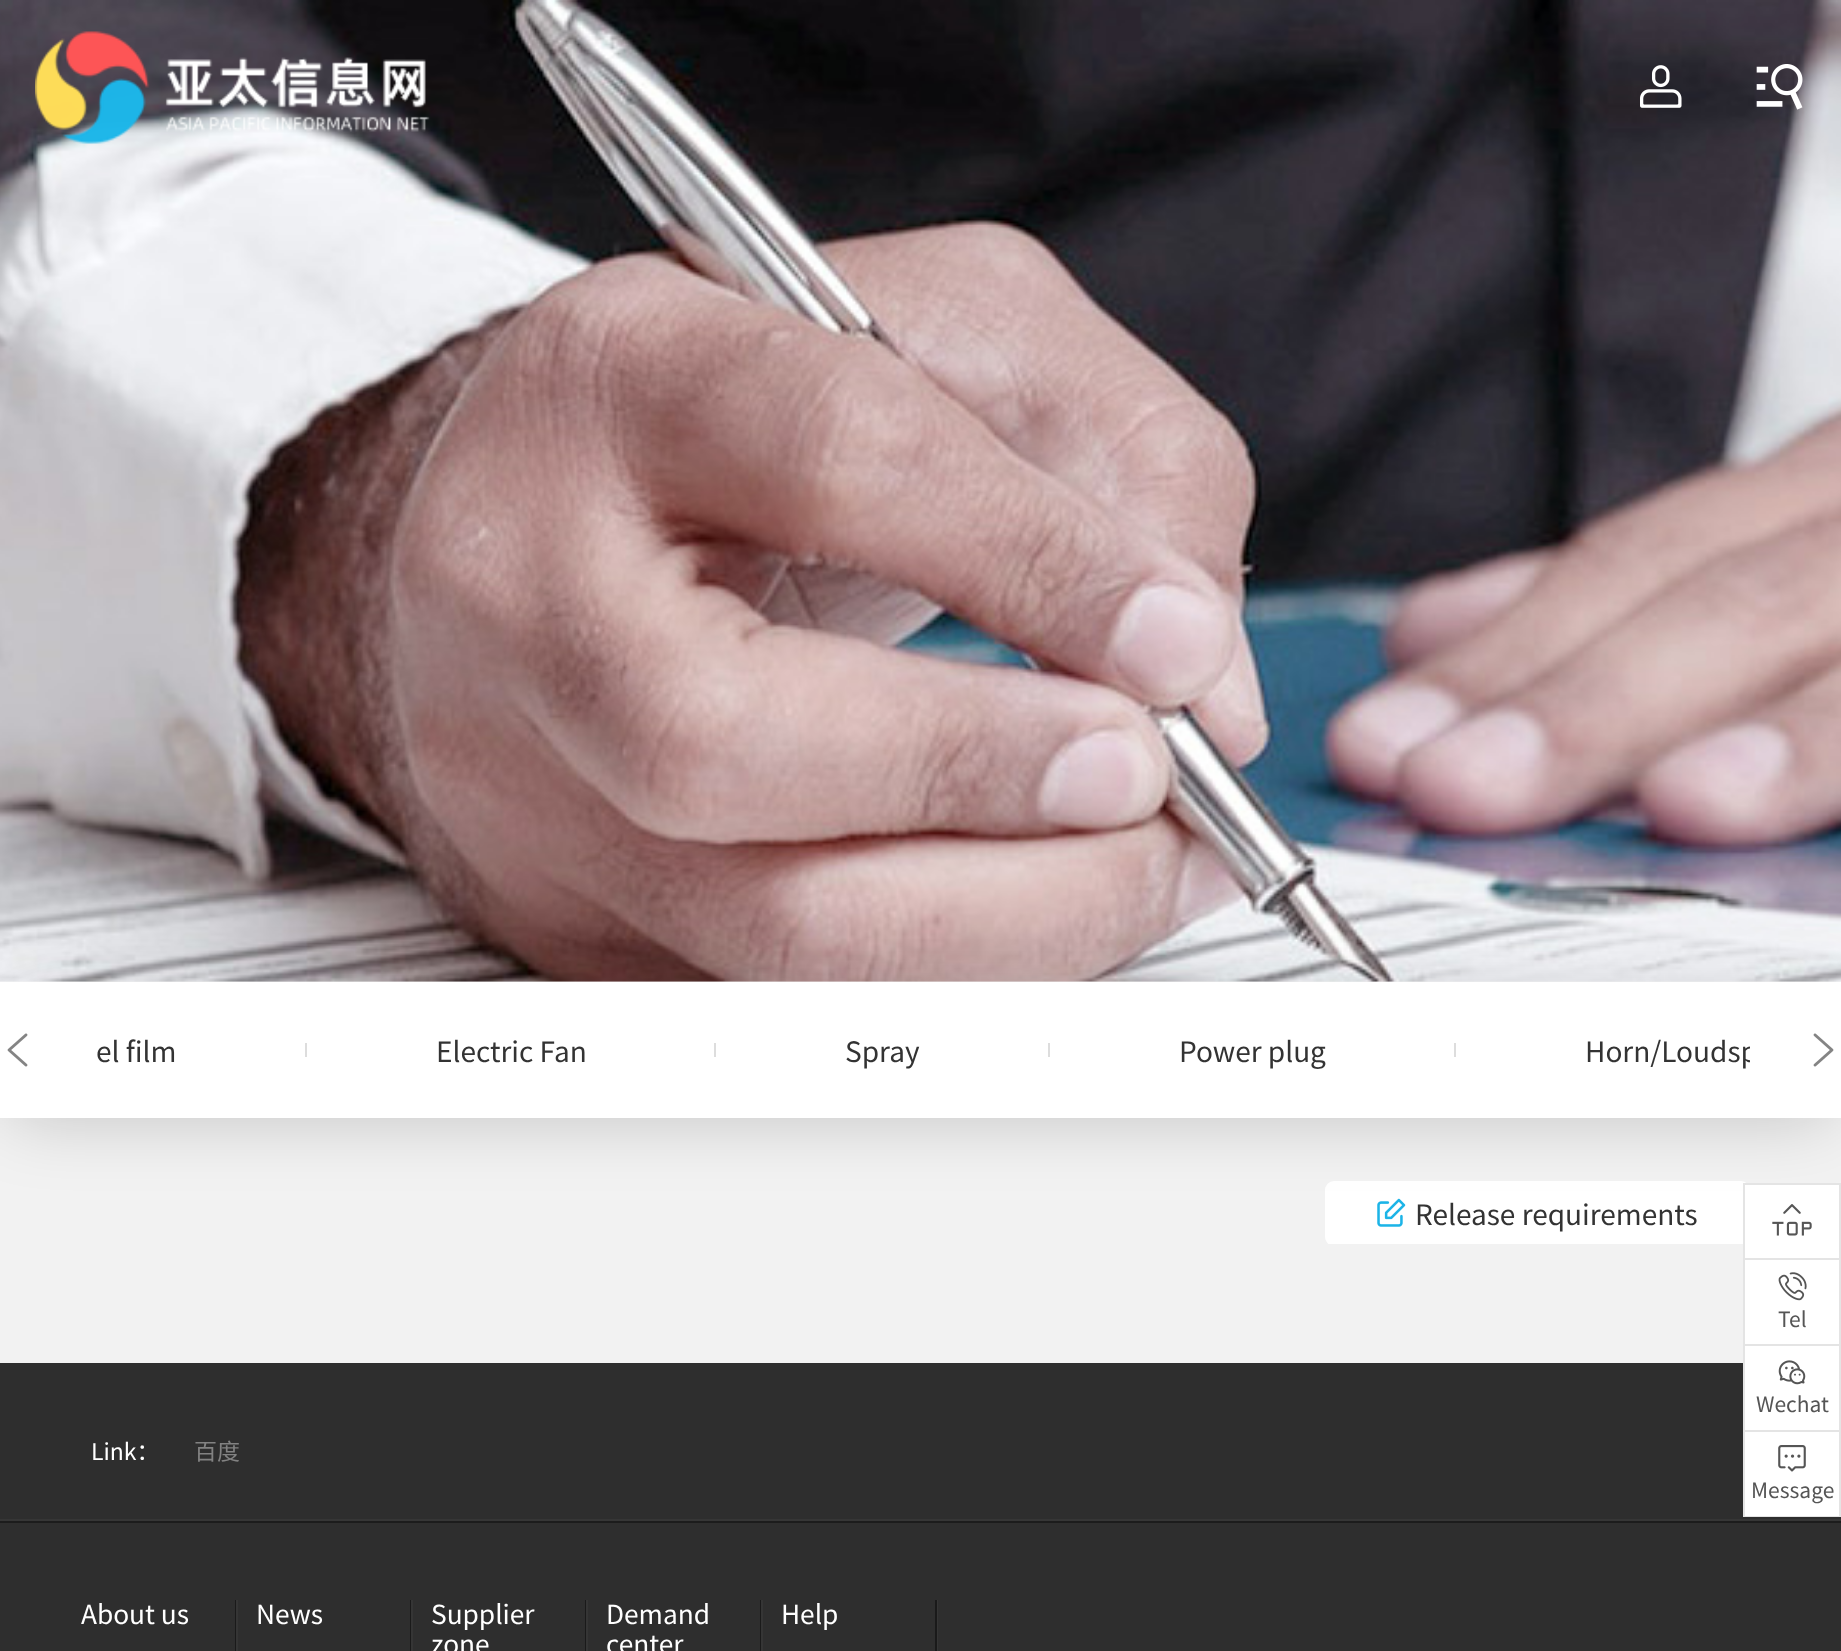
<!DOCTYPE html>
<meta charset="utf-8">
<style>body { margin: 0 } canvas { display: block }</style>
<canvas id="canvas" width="1841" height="1651"></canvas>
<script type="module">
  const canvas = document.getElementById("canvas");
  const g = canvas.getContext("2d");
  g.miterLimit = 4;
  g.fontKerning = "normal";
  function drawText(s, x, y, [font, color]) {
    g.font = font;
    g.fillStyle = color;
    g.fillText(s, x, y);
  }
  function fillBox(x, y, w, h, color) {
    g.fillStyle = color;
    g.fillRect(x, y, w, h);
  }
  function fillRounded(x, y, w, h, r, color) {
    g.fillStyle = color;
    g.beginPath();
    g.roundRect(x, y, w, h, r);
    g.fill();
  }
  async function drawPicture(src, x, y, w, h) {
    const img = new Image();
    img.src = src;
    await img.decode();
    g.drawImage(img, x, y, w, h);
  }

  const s1 = ["28px Noto Sans CJK SC", "#333333"];
  const s2 = ["21px Noto Sans CJK SC", "#555555"];
  const s3 = ["23px Noto Sans CJK SC", "#FFFFFF"];
  const s4 = ["23px Noto Sans CJK SC", "#828282"];
  const s5 = ["26.25px Noto Sans CJK SC", "#FFFFFF"];

  fillBox(0, 0, 1841, 1651, "#FFFFFF");
  await drawPicture("pic1.png", 0, 0, 1841, 982);
  await drawPicture("pic2.png", 35, 31, 395, 113);
  await drawPicture("pic3.png", 1640, 65, 42, 43);
  await drawPicture("pic4.png", 1756, 64, 47, 46);
  fillBox(0, 1118, 1841, 245, "#F2F2F2");
  g.save();
  g.beginPath();
  g.rect(0, 1181, 1841, 63);
  g.clip();
  fillRounded(1325, 1181, 425, 65, 9, "#FFFFFF");
  g.restore();
  await drawPicture("pic7.png", 1377, 1198, 29, 29);
  g.save();
  g.beginPath();
  g.moveTo(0, 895);
  g.lineTo(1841, 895);
  g.lineTo(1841, 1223);
  g.lineTo(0, 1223);
  g.closePath();
  g.moveTo(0, 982);
  g.lineTo(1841, 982);
  g.lineTo(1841, 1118);
  g.lineTo(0, 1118);
  g.closePath();
  g.clip("evenodd");
  g.fillStyle = "rgba(0, 0, 0, 0.2)";
  g.filter = "blur(35px)";
  g.beginPath();
  g.rect(11, 1001, 1820, 116);
  g.fill();
  g.filter = "none";
  g.restore();
  await drawPicture("pic5.png", 7, 1033, 21, 34);
  drawText("el film", 96, 1062, s1);
  fillBox(305, 1043, 2, 14, "#DDDDDD");
  drawText("Electric Fan", 436, 1062, s1);
  fillBox(714, 1043, 2, 14, "#DDDDDD");
  drawText("Spray", 845, 1062, s1);
  fillBox(1048, 1043, 2, 14, "#DDDDDD");
  drawText("Power plug", 1179, 1062, s1);
  fillBox(1454, 1043, 2, 14, "#DDDDDD");
  g.save();
  g.beginPath();
  g.rect(91, 982, 1659, 136);
  g.clip();
  drawText("Horn/Loudsp", 1585, 1062, s1);
  g.restore();
  await drawPicture("pic6.png", 1813, 1033, 21, 34);
  drawText("Release requirements", 1415, 1225, s1);
  fillBox(0, 1363, 1841, 288, "#2E2E2E");
  g.strokeStyle = "#E4E4E4";
  g.lineWidth = 2;
  g.strokeRect(1744, 1184, 96, 332);
  fillBox(1745, 1185, 94, 73, "#FFFFFF");
  fillBox(1745, 1258, 94, 2, "#E4E4E4");
  await drawPicture("pic8.png", 1772, 1204, 40, 32);
  fillBox(1745, 1260, 94, 84, "#FFFFFF");
  fillBox(1745, 1344, 94, 2, "#E4E4E4");
  await drawPicture("pic9.png", 1778, 1272, 29, 29);
  drawText("Tel", 1778, 1327, s2);
  fillBox(1745, 1346, 94, 84, "#FFFFFF");
  fillBox(1745, 1430, 94, 2, "#E4E4E4");
  await drawPicture("pic10.png", 1778, 1360, 28, 25);
  drawText("Wechat", 1756, 1412, s2);
  fillBox(1745, 1432, 94, 84, "#FFFFFF");
  await drawPicture("pic11.png", 1778, 1445, 28, 27);
  drawText("Message", 1751, 1498, s2);
  fillBox(0, 1519, 1841, 2, "#363636");
  drawText("Link：", 91, 1460, s3);
  drawText("百度", 194, 1460, s4);
  fillBox(0, 1521, 1841, 2, "#1C1C1C");
  fillBox(937, 1600, 1, 51, "#353535");
  fillBox(235, 1600, 1, 51, "#1A1A1A");
  drawText("About us", 81, 1624, s5);
  fillBox(410, 1600, 1, 51, "#1A1A1A");
  fillBox(236, 1600, 2, 51, "#353535");
  drawText("News", 256, 1624, s5);
  fillBox(585, 1600, 1, 51, "#1A1A1A");
  fillBox(411, 1600, 2, 51, "#353535");
  drawText("Supplier", 431, 1624, s5);
  drawText("zone", 431, 1654, s5);
  fillBox(760, 1600, 1, 51, "#1A1A1A");
  fillBox(586, 1600, 2, 51, "#353535");
  drawText("Demand", 606, 1624, s5);
  drawText("center", 606, 1654, s5);
  fillBox(935, 1600, 2, 51, "#1A1A1A");
  fillBox(761, 1600, 2, 51, "#353535");
  drawText("Help", 781, 1624, s5);
</script>
